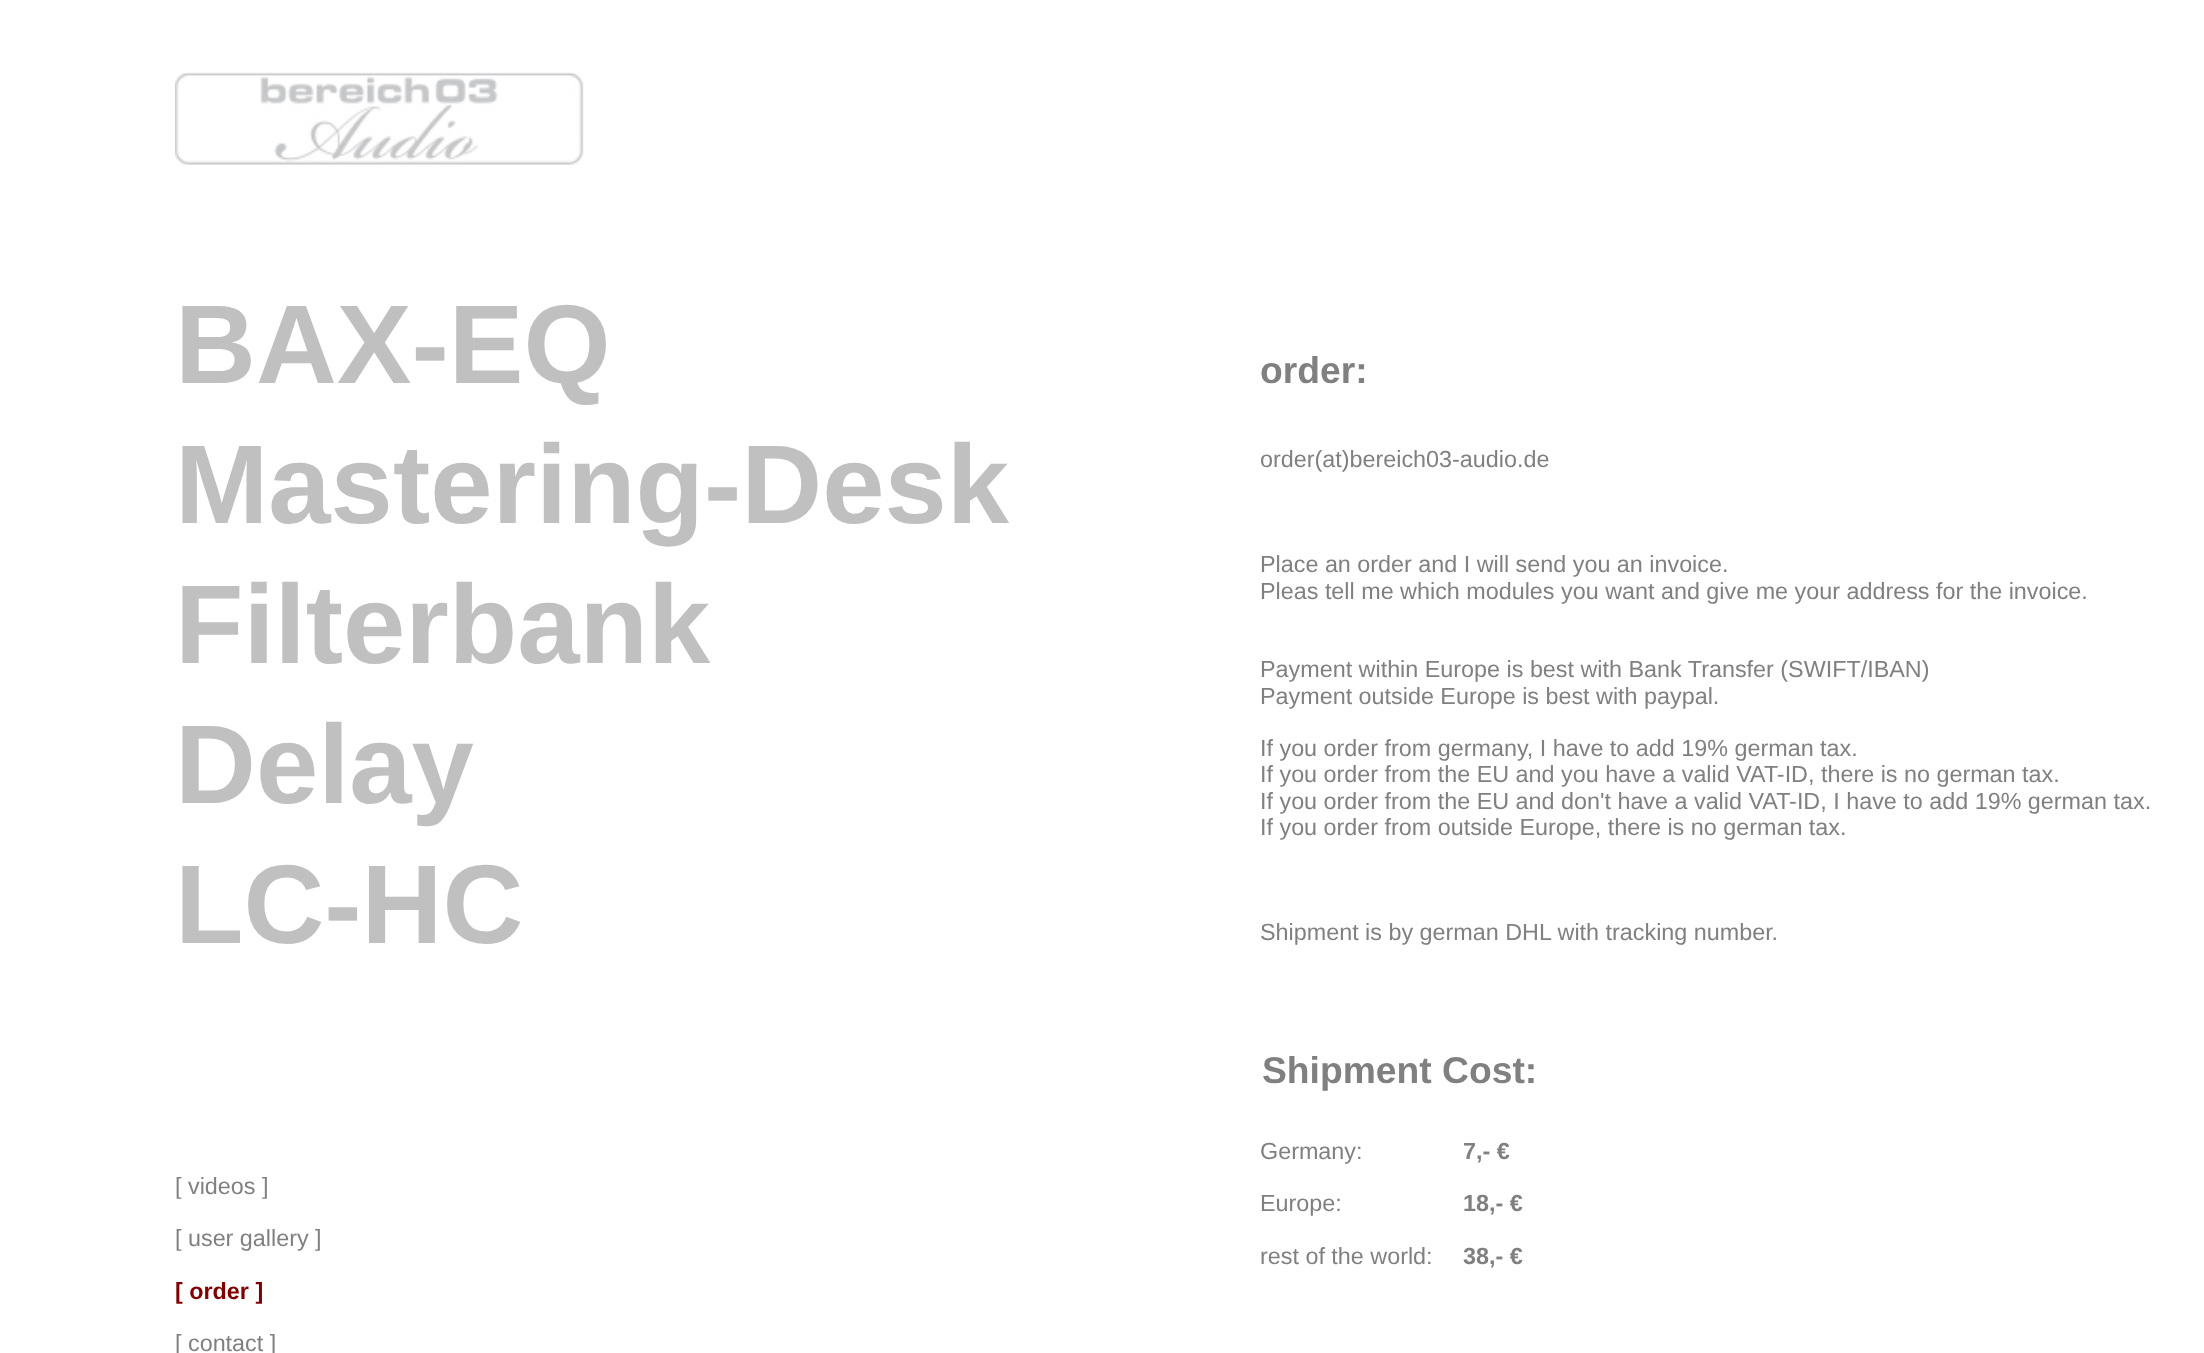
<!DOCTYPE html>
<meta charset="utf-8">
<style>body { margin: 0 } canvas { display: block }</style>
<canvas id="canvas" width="2204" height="1353"></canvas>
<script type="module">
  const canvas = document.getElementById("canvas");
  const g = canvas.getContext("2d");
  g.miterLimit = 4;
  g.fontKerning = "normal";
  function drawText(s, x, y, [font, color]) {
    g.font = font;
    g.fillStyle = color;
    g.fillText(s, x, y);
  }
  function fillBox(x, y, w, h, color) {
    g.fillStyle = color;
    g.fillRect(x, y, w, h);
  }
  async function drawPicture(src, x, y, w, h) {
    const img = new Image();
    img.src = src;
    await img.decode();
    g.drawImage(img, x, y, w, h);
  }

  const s1 = ["bold 112px Liberation Sans", "#C0C0C0"];
  const s2 = ["bold 37.25px Liberation Sans", "#808080"];
  const s3 = ["23.35px Liberation Sans", "#808080"];
  const s4 = ["bold 23.35px Liberation Sans", "#808080"];
  const s5 = ["bold 23.35px Liberation Sans", "#800000"];

  fillBox(0, 0, 2204, 1353, "#FFFFFF");
  await drawPicture("pic1.png", 175, 72, 409, 93);
  drawText("BAX-EQ", 175, 383, s1);
  drawText("order:", 1260, 383, s2);
  drawText("order(at)bereich03-audio.de", 1260, 467, s3);
  drawText("Place an order and I will send you an invoice.", 1260, 572, s3);
  drawText("Pleas tell me which modules you want and give me your address for the invoice.", 1260, 599, s3);
  drawText("Payment within Europe is best with Bank Transfer (SWIFT/IBAN)", 1260, 677, s3);
  drawText("Payment outside Europe is best with paypal.", 1260, 704, s3);
  drawText("If you order from germany, I have to add 19% german tax.", 1260, 756, s3);
  drawText("If you order from the EU and you have a valid VAT-ID, there is no german tax.", 1260, 782, s3);
  drawText("If you order from the EU and don't have a valid VAT-ID, I have to add 19% german tax.", 1260, 809, s3);
  drawText("If you order from outside Europe, there is no german tax.", 1260, 835, s3);
  drawText("Shipment is by german DHL with tracking number.", 1260, 940, s3);
  drawText("Mastering-Desk", 175, 523, s1);
  drawText("Filterbank", 175, 663, s1);
  drawText("Delay", 175, 803, s1);
  drawText("LC-HC", 175, 943, s1);
  drawText("Shipment Cost:", 1262, 1083, s2);
  drawText("[ videos ]", 175, 1194, s3);
  drawText("Germany:", 1260, 1159, s3);
  drawText("Europe:", 1260, 1211, s3);
  drawText("rest of the world:", 1260, 1264, s3);
  drawText("7,- €", 1463, 1159, s4);
  drawText("18,- €", 1463, 1211, s4);
  drawText("38,- €", 1463, 1264, s4);
  drawText("[ user gallery ]", 175, 1246, s3);
  drawText("[ order ]", 175, 1299, s5);
  drawText("[ contact ]", 175, 1351, s3);
</script>
